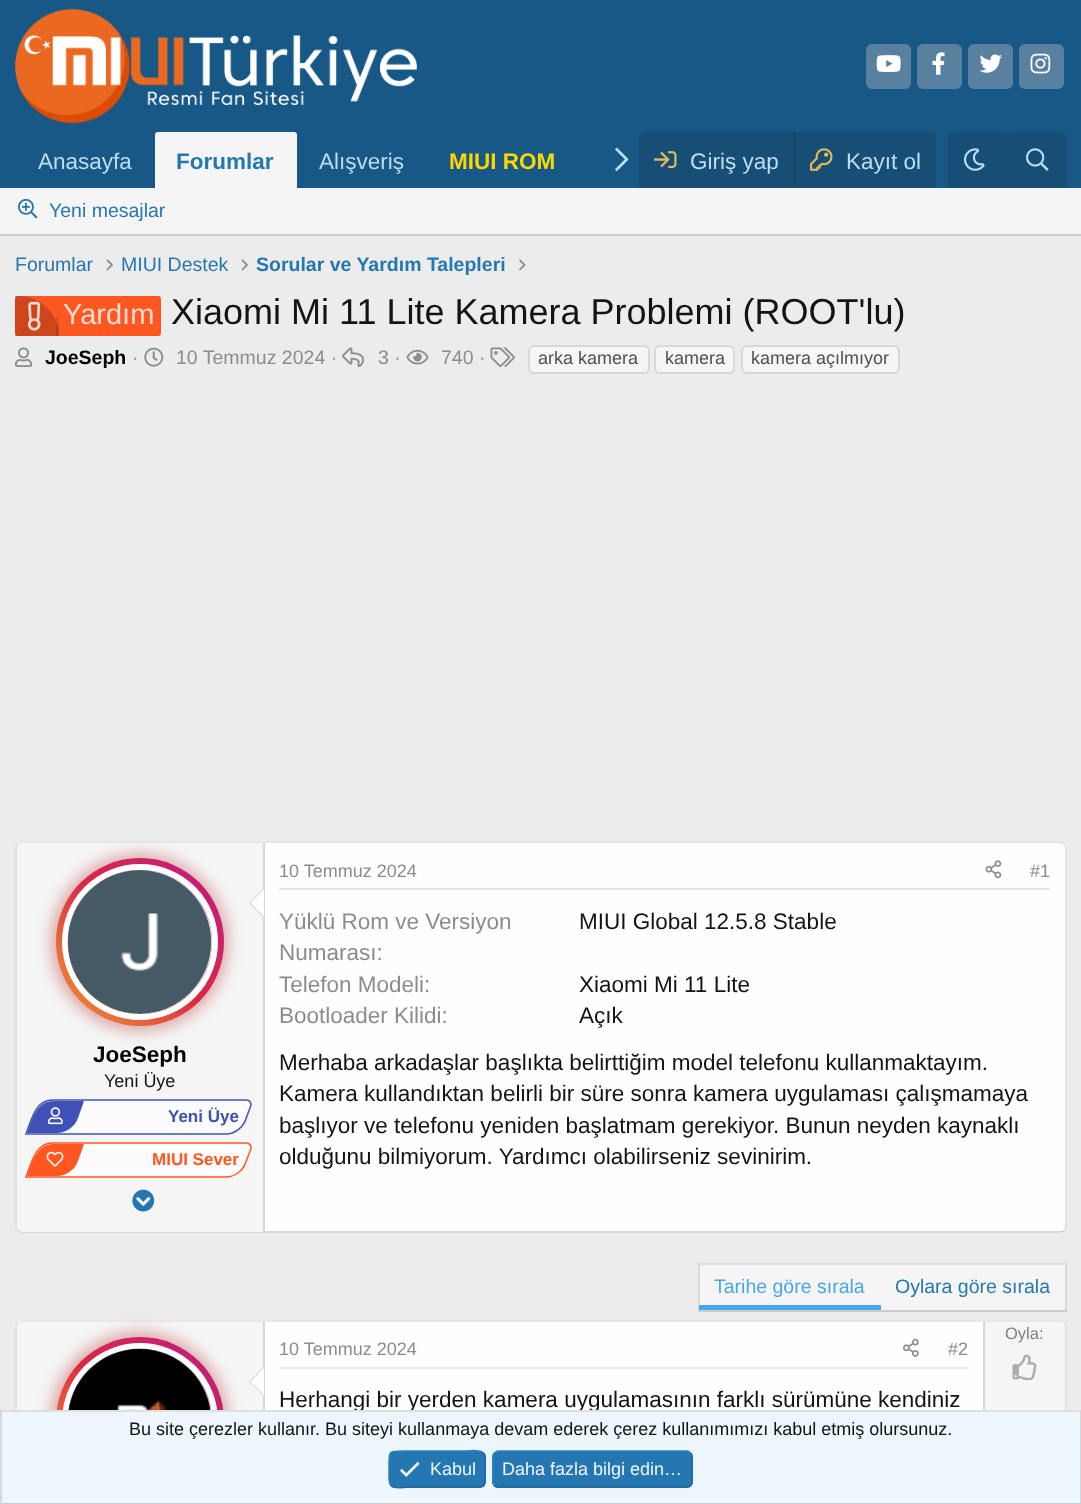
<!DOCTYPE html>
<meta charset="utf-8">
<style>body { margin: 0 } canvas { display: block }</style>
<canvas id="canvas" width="1081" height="1504"></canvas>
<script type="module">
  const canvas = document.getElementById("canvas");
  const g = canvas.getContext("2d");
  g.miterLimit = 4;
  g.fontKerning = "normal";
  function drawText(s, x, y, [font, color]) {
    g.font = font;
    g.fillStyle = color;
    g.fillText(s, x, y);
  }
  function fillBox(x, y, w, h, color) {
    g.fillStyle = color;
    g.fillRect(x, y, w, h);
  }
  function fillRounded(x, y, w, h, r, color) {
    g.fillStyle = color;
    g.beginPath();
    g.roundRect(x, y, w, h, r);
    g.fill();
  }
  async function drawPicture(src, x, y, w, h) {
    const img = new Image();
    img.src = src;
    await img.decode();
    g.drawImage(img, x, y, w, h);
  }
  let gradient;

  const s1 = ["22.5px Liberation Sans", "#BCDEF5"];
  const s2 = ["bold 22.5px Liberation Sans", "#2577B1"];
  const s3 = ["bold 22.5px Liberation Sans", "#FDD700"];
  const s4 = ["19.5px Liberation Sans", "#2577B1"];
  const s5 = ["bold 19.5px Liberation Sans", "#2577B1"];
  const s6 = ["29px Liberation Sans", "#FFDDD3"];
  const s7 = ["36px Liberation Sans", "#141414"];
  const s8 = ["bold 19.5px Liberation Sans", "#000000"];
  const s9 = ["19.5px Liberation Sans", "#8C8C8C"];
  const s10 = ["18px Liberation Sans", "#505050"];
  const s11 = ["bold 22.5px Liberation Sans", "#000000"];
  const s12 = ["18px Liberation Sans", "#141414"];
  const s13 = ["bold 17px Liberation Sans", "#3F51B5"];
  const s14 = ["bold 17px Liberation Sans", "#FF5722"];
  const s15 = ["18px Liberation Sans", "#8C8C8C"];
  const s16 = ["22.5px Liberation Sans", "#8C8C8C"];
  const s17 = ["22.5px Liberation Sans", "#141414"];
  const s18 = ["19.5px Liberation Sans", "#47A7EB"];
  const s19 = ["16.5px Liberation Sans", "#808080"];
  const s20 = ["18px Liberation Sans", "#EDF6FD"];

  fillBox(0, 0, 1081, 1504, "#ECECEC");
  fillBox(0, 0, 1081, 188, "#185886");
  await drawPicture("pic1.png", 15, 9, 402, 114);
  fillRounded(866, 44, 45, 45, 6, "#58819F");
  await drawPicture("pic2.png", 876, 55, 25, 17);
  fillRounded(917, 44, 45, 45, 6, "#58819F");
  await drawPicture("pic3.png", 932, 52, 13, 23);
  fillRounded(968, 44, 45, 45, 6, "#58819F");
  await drawPicture("pic4.png", 979, 54, 23, 19);
  fillRounded(1019, 44, 45, 45, 6, "#58819F");
  await drawPicture("pic5.png", 1030, 53, 21, 21);
  drawText("Anasayfa", 38, 169, s1);
  g.fillStyle = "#F5F5F5";
  g.beginPath();
  g.roundRect(155, 132, 142, 56, [3, 3, 0, 0]);
  g.fill();
  drawText("Forumlar", 176, 169, s2);
  drawText("Alışveriş", 319, 169, s1);
  drawText("MIUI ROM", 449, 169, s3);
  await drawPicture("pic6.png", 615, 147, 14, 24);
  g.fillStyle = "#174E75";
  g.beginPath();
  g.roundRect(639, 132, 297, 56, [6, 6, 0, 0]);
  g.fill();
  await drawPicture("pic7.png", 654, 151, 23, 17);
  drawText("Giriş yap", 690, 169, s1);
  fillBox(794, 132, 2, 56, "#174566");
  await drawPicture("pic8.png", 810, 148, 23, 23);
  drawText("Kayıt ol", 846, 169, s1);
  g.fillStyle = "#174E75";
  g.beginPath();
  g.roundRect(948, 132, 60, 56, [6, 6, 0, 0]);
  g.fill();
  await drawPicture("pic9.png", 964, 148, 21, 23);
  g.beginPath();
  g.roundRect(1008, 132, 59, 56, [6, 6, 0, 0]);
  g.fill();
  await drawPicture("pic10.png", 1026, 148, 23, 23);
  fillBox(0, 188, 1081, 46, "#F5F5F5");
  fillBox(0, 234, 1081, 2, "#CBCBCB");
  await drawPicture("pic11.png", 18, 198, 20, 21);
  drawText("Yeni mesajlar", 49, 217, s4);
  drawText("Forumlar", 15, 271, s4);
  await drawPicture("pic12.png", 106, 259, 7, 12);
  drawText("MIUI Destek", 121, 271, s4);
  await drawPicture("pic12.png", 241, 259, 7, 12);
  drawText("Sorular ve Yardım Talepleri", 256, 271, s5);
  await drawPicture("pic13.png", 519, 259, 7, 12);
  fillRounded(15, 296, 146, 40, 3, "#FF5722");
  g.fillStyle = "rgba(0, 0, 0, 0.2)";
  g.beginPath();
  g.roundRect(15, 296, 44, 40, [0, 40, 0, 0]);
  g.fill();
  fillBox(56, 317, 3, 19, "rgba(0, 0, 0, 0.1)");
  await drawPicture("pic14.png", 27, 301, 14, 30);
  drawText("Yardım", 63, 324, s6);
  drawText("Xiaomi Mi 11 Lite Kamera Problemi (ROOT'lu)", 171, 324, s7);
  await drawPicture("pic15.png", 15, 347, 18, 20);
  drawText("JoeSeph", 45, 364, s8);
  drawText("·", 132, 364, s9);
  await drawPicture("pic16.png", 144, 347, 20, 20);
  drawText("10 Temmuz 2024 ·", 176, 364, s9);
  await drawPicture("pic17.png", 342, 347, 22, 20);
  drawText("3 ·", 378, 364, s9);
  await drawPicture("pic18.png", 406, 349, 23, 16);
  drawText("740 ·", 441, 364, s9);
  await drawPicture("pic19.png", 490, 347, 25, 20);
  g.fillStyle = "#F5F5F5";
  g.beginPath();
  g.roundRect(529, 346, 120, 27, 5);
  g.fill();
  g.strokeStyle = "#D8D8D8";
  g.lineWidth = 2;
  g.stroke();
  drawText("arka kamera", 538, 364, s10);
  g.fillStyle = "#F5F5F5";
  g.beginPath();
  g.roundRect(655, 346, 79, 27, 5);
  g.fill();
  g.stroke();
  drawText("kamera", 665, 364, s10);
  g.fillStyle = "#F5F5F5";
  g.beginPath();
  g.roundRect(742, 346, 157, 27, 5);
  g.fill();
  g.stroke();
  drawText("kamera açılmıyor", 751, 364, s10);
  fillRounded(15, 842, 1052, 391, 6, "#FEFEFE");
  g.beginPath();
  g.moveTo(17.5, 844);
  g.bezierCurveTo(18.5, 843, 19.5, 842, 21, 842);
  g.lineTo(1060.5, 842);
  g.bezierCurveTo(1062, 842, 1063, 843, 1064, 844);
  g.strokeStyle = "#DFDFDF";
  g.lineWidth = 1.5;
  g.stroke();
  g.beginPath();
  g.moveTo(1064, 844);
  g.bezierCurveTo(1065, 845, 1066, 846, 1066, 847.5);
  g.lineTo(1066, 1227);
  g.bezierCurveTo(1066, 1228.5, 1065, 1229.5, 1064, 1230.5);
  g.strokeStyle = "#D8D8D8";
  g.stroke();
  g.beginPath();
  g.moveTo(1064, 1230.5);
  g.bezierCurveTo(1063, 1231.5, 1062, 1232, 1060.5, 1232);
  g.lineTo(21, 1232);
  g.bezierCurveTo(19.5, 1232, 18.5, 1231.5, 17.5, 1230.5);
  g.strokeStyle = "#CBCBCB";
  g.stroke();
  g.beginPath();
  g.moveTo(17.5, 1230.5);
  g.bezierCurveTo(16.5, 1229.5, 16, 1228.5, 16, 1227);
  g.lineTo(16, 847.5);
  g.bezierCurveTo(16, 846, 16.5, 845, 17.5, 844);
  g.strokeStyle = "#D8D8D8";
  g.stroke();
  g.fillStyle = "#F5F5F5";
  g.beginPath();
  g.roundRect(17, 843, 247, 389, [5, 0, 0, 5]);
  g.fill();
  fillBox(263, 843, 2, 389, "#D8D8D8");
  g.fillStyle = "rgba(178, 34, 34, 0.38)";
  g.filter = "blur(7.5px)";
  g.beginPath();
  g.roundRect(51, 854, 177, 177, 88.5);
  g.fill();
  g.filter = "none";
  gradient = g.createLinearGradient(56, 1026, 224, 858);
  gradient.addColorStop(0, "#F09433");
  gradient.addColorStop(0.25, "#E6683C");
  gradient.addColorStop(0.5, "#DC2743");
  gradient.addColorStop(0.75, "#CC2366");
  gradient.addColorStop(1, "#BC1888");
  g.fillStyle = gradient;
  g.beginPath();
  g.arc(140, 942, 84, 0, Math.PI * 2);
  g.fill();
  g.beginPath();
  g.arc(140, 942, 75, 0, Math.PI * 2);
  g.strokeStyle = "#FFFFFF";
  g.lineWidth = 6;
  g.stroke();
  g.fillStyle = "#FEFEFE";
  g.beginPath();
  g.arc(140, 942, 72, 0, Math.PI * 2);
  g.fill();
  await drawPicture("pic20.png", 67, 870, 145, 144);
  g.fillStyle = "#D8D8D8";
  g.beginPath();
  g.moveTo(264, 888);
  g.lineTo(264, 918);
  g.lineTo(249, 903);
  g.closePath();
  g.fill();
  g.fillStyle = "#FEFEFE";
  g.beginPath();
  g.moveTo(264, 889.5);
  g.lineTo(264, 916.5);
  g.lineTo(250.5, 903);
  g.closePath();
  g.fill();
  drawText("JoeSeph", 93, 1062, s11);
  drawText("Yeni Üye", 104, 1087, s12);
  g.fillStyle = "#FCFCFC";
  g.beginPath();
  g.moveTo(53, 1099);
  g.lineTo(246, 1099);
  g.bezierCurveTo(251, 1099, 253, 1103, 251, 1107);
  g.lineTo(246, 1120);
  g.bezierCurveTo(243, 1128, 234, 1135, 226, 1135);
  g.lineTo(25, 1135);
  g.bezierCurveTo(30, 1121, 34, 1099, 53, 1099);
  g.closePath();
  g.fill();
  g.beginPath();
  g.moveTo(52.5, 1100);
  g.lineTo(246, 1100);
  g.bezierCurveTo(250, 1100, 252, 1103, 250.5, 1106.5);
  g.lineTo(245.5, 1120);
  g.bezierCurveTo(243, 1127.5, 234, 1134, 226.5, 1134);
  g.lineTo(26, 1134);
  g.bezierCurveTo(31, 1121, 35, 1100, 52.5, 1100);
  g.closePath();
  g.strokeStyle = "#3F51B5";
  g.lineWidth = 1.5;
  g.stroke();
  g.fillStyle = "#3F51B5";
  g.beginPath();
  g.moveTo(54, 1101);
  g.lineTo(84, 1101);
  g.lineTo(78, 1118);
  g.bezierCurveTo(75, 1127, 65, 1133, 57, 1133);
  g.lineTo(27, 1133);
  g.bezierCurveTo(32, 1120, 36, 1101, 54, 1101);
  g.closePath();
  g.fill();
  await drawPicture("pic21.png", 48, 1107, 15, 18);
  drawText("Yeni Üye", 168, 1122, s13);
  g.fillStyle = "#FCFCFC";
  g.beginPath();
  g.moveTo(53, 1142);
  g.lineTo(246, 1142);
  g.bezierCurveTo(251, 1142, 253, 1146, 251, 1150);
  g.lineTo(246, 1163);
  g.bezierCurveTo(243, 1171, 234, 1178, 226, 1178);
  g.lineTo(25, 1178);
  g.bezierCurveTo(30, 1164, 34, 1142, 53, 1142);
  g.closePath();
  g.fill();
  g.beginPath();
  g.moveTo(52.5, 1143);
  g.lineTo(246, 1143);
  g.bezierCurveTo(250, 1143, 252, 1146, 250.5, 1150);
  g.lineTo(245.5, 1163);
  g.bezierCurveTo(243, 1171, 234, 1177, 226.5, 1177);
  g.lineTo(26, 1177);
  g.bezierCurveTo(31, 1164, 35, 1143, 52.5, 1143);
  g.closePath();
  g.strokeStyle = "#FF5722";
  g.stroke();
  g.fillStyle = "#FF5722";
  g.beginPath();
  g.moveTo(54, 1144);
  g.lineTo(84, 1144);
  g.lineTo(78, 1161);
  g.bezierCurveTo(75, 1170, 65, 1176, 57, 1176);
  g.lineTo(27, 1176);
  g.bezierCurveTo(32, 1163, 36, 1144, 54, 1144);
  g.closePath();
  g.fill();
  await drawPicture("pic22.png", 46, 1151, 18, 16);
  drawText("MIUI Sever", 152, 1165, s14);
  await drawPicture("pic23.png", 132, 1189, 23, 23);
  fillBox(279, 888, 771, 2, "#E7E7E7");
  drawText("10 Temmuz 2024", 279, 877, s15);
  await drawPicture("pic24.png", 985, 860, 17, 19);
  drawText("#1", 1030, 877, s15);
  drawText("Yüklü Rom ve Versiyon", 279, 929, s16);
  drawText("Numarası:", 279, 960, s16);
  drawText("MIUI Global 12.5.8 Stable", 579, 929, s17);
  drawText("Telefon Modeli:", 279, 992, s16);
  drawText("Xiaomi Mi 11 Lite", 579, 992, s17);
  drawText("Bootloader Kilidi:", 279, 1023, s16);
  drawText("Açık", 579, 1023, s17);
  drawText("Merhaba arkadaşlar başlıkta belirttiğim model telefonu kullanmaktayım.", 279, 1070, s17);
  drawText("Kamera kullandıktan belirli bir süre sonra kamera uygulaması çalışmamaya", 279, 1101, s17);
  drawText("başlıyor ve telefonu yeniden başlatmam gerekiyor. Bunun neyden kaynaklı", 279, 1133, s17);
  drawText("olduğunu bilmiyorum. Yardımcı olabilirseniz sevinirim.", 279, 1164, s17);
  fillBox(700, 1265, 365, 45, "#F5F5F5");
  fillBox(698, 1263, 369, 2, "#DFDFDF");
  fillBox(1065, 1263, 2, 48, "#D8D8D8");
  fillBox(698, 1310, 369, 2, "#CBCBCB");
  fillBox(698, 1263, 2, 48, "#D8D8D8");
  fillBox(699, 1305, 182, 5, "#47A7EB");
  drawText("Tarihe göre sırala", 714, 1293, s18);
  drawText("Oylara göre sırala", 895, 1293, s4);
  fillRounded(15, 1320, 1052, 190, 6, "#FEFEFE");
  g.beginPath();
  g.moveTo(17.5, 1322.5);
  g.bezierCurveTo(18.5, 1321.5, 19.5, 1321, 21, 1321);
  g.lineTo(1060.5, 1321);
  g.bezierCurveTo(1062, 1321, 1063, 1321.5, 1064, 1322.5);
  g.strokeStyle = "#DFDFDF";
  g.stroke();
  g.beginPath();
  g.moveTo(1064, 1322.5);
  g.bezierCurveTo(1065, 1323.5, 1066, 1324.5, 1066, 1326);
  g.lineTo(1066, 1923);
  g.bezierCurveTo(1066, 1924.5, 1065, 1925.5, 1064, 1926.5);
  g.strokeStyle = "#D8D8D8";
  g.stroke();
  g.beginPath();
  g.moveTo(17.5, 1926.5);
  g.bezierCurveTo(16.5, 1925.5, 16, 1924.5, 16, 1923);
  g.lineTo(16, 1326);
  g.bezierCurveTo(16, 1324.5, 16.5, 1323.5, 17.5, 1322.5);
  g.stroke();
  g.fillStyle = "#F5F5F5";
  g.beginPath();
  g.moveTo(22, 1322);
  g.lineTo(264, 1322);
  g.lineTo(264, 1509);
  g.lineTo(22, 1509);
  g.bezierCurveTo(19, 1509, 17, 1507, 17, 1504);
  g.lineTo(17, 1327);
  g.bezierCurveTo(17, 1324, 19, 1322, 22, 1322);
  g.closePath();
  g.fill();
  fillBox(263, 1322, 2, 88, "#D8D8D8");
  g.fillStyle = "rgba(178, 34, 34, 0.38)";
  g.filter = "blur(7.5px)";
  g.beginPath();
  g.roundRect(51, 1332, 177, 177, 88.5);
  g.fill();
  g.filter = "none";
  gradient = g.createLinearGradient(56, 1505, 224, 1337);
  gradient.addColorStop(0, "#F09433");
  gradient.addColorStop(0.25, "#E6683C");
  gradient.addColorStop(0.5, "#DC2743");
  gradient.addColorStop(0.75, "#CC2366");
  gradient.addColorStop(1, "#BC1888");
  g.fillStyle = gradient;
  g.beginPath();
  g.arc(140, 1421, 84, 0, Math.PI * 2);
  g.fill();
  g.beginPath();
  g.arc(140, 1421, 75, 0, Math.PI * 2);
  g.strokeStyle = "#FFFFFF";
  g.lineWidth = 6;
  g.stroke();
  g.fillStyle = "#FEFEFE";
  g.beginPath();
  g.arc(140, 1421, 72, 0, Math.PI * 2);
  g.fill();
  await drawPicture("pic25.png", 68, 1348, 143, 62);
  g.fillStyle = "#D8D8D8";
  g.beginPath();
  g.moveTo(264, 1366.5);
  g.lineTo(264, 1396.5);
  g.lineTo(249, 1381.5);
  g.closePath();
  g.fill();
  g.fillStyle = "#FEFEFE";
  g.beginPath();
  g.moveTo(264, 1368);
  g.lineTo(264, 1395);
  g.lineTo(250.5, 1381.5);
  g.closePath();
  g.fill();
  g.fillStyle = "#F5F5F5";
  g.beginPath();
  g.moveTo(983, 1322);
  g.lineTo(1060, 1322);
  g.bezierCurveTo(1063, 1322, 1065, 1324, 1065, 1327);
  g.lineTo(1065, 1504);
  g.bezierCurveTo(1065, 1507, 1063, 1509, 1060, 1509);
  g.lineTo(983, 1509);
  g.closePath();
  g.fill();
  fillBox(983, 1322, 2, 88, "#D8D8D8");
  drawText("Oyla:", 1005, 1339, s19);
  await drawPicture("pic26.png", 1012, 1354, 25, 27);
  fillBox(279, 1367, 689, 2, "#E7E7E7");
  drawText("10 Temmuz 2024", 279, 1355, s15);
  await drawPicture("pic27.png", 903, 1338, 16, 19);
  drawText("#2", 948, 1355, s15);
  drawText("Herhangi bir yerden kamera uygulamasının farklı sürümüne kendiniz", 279, 1407, s17);
  fillBox(2, 1412, 1078, 91, "#EDF6FD");
  fillBox(0, 1410, 1081, 2, "#DFDFDF");
  fillBox(1080, 1410, 1, 94, "#D8D8D8");
  fillBox(0, 1503, 1081, 1, "#CBCBCB");
  fillBox(0, 1410, 2, 94, "#D8D8D8");
  drawText("Bu site çerezler kullanır. Bu siteyi kullanmaya devam ederek çerez kullanımımızı kabul etmiş olursunuz.", 129, 1435, s12);
  fillRounded(389, 1451, 97, 37, 6, "#2577B1");
  g.beginPath();
  g.moveTo(483.5, 1453);
  g.bezierCurveTo(486.5, 1455.5, 485, 1465.5, 485, 1469);
  g.bezierCurveTo(485, 1489.5, 487.5, 1487, 466, 1487);
  g.lineTo(409, 1487);
  g.bezierCurveTo(408.5, 1487, 394.5, 1489.5, 391, 1485.5);
  g.strokeStyle = "#21699C";
  g.lineWidth = 1.5;
  g.stroke();
  g.beginPath();
  g.moveTo(391, 1485.5);
  g.bezierCurveTo(388, 1483, 389, 1473, 389, 1469);
  g.bezierCurveTo(389, 1449, 387, 1451, 409, 1451);
  g.lineTo(466, 1451);
  g.bezierCurveTo(466, 1451, 480, 1449, 483.5, 1453);
  g.strokeStyle = "#2985C6";
  g.stroke();
  await drawPicture("pic28.png", 400, 1462, 20, 15);
  drawText("Kabul", 430, 1475, s20);
  fillRounded(492, 1451, 201, 37, 6, "#2577B1");
  g.beginPath();
  g.moveTo(690.5, 1453);
  g.bezierCurveTo(691.5, 1454, 692, 1455, 692, 1456.5);
  g.lineTo(692, 1482);
  g.bezierCurveTo(692, 1483.5, 691.5, 1484.5, 690.5, 1485.5);
  g.bezierCurveTo(689.5, 1486.5, 688.5, 1487, 687, 1487);
  g.lineTo(498, 1487);
  g.bezierCurveTo(496.5, 1487, 495.5, 1486.5, 494.5, 1485.5);
  g.strokeStyle = "#21699C";
  g.stroke();
  g.beginPath();
  g.moveTo(494.5, 1485.5);
  g.bezierCurveTo(493.5, 1484.5, 493, 1483.5, 493, 1482);
  g.lineTo(493, 1456.5);
  g.bezierCurveTo(493, 1455, 493.5, 1454, 494.5, 1453);
  g.bezierCurveTo(495.5, 1452, 496.5, 1451, 498, 1451);
  g.lineTo(687, 1451);
  g.bezierCurveTo(688.5, 1451, 689.5, 1452, 690.5, 1453);
  g.strokeStyle = "#2985C6";
  g.stroke();
  drawText("Daha fazla bilgi edin…", 502, 1475, s20);
</script>
